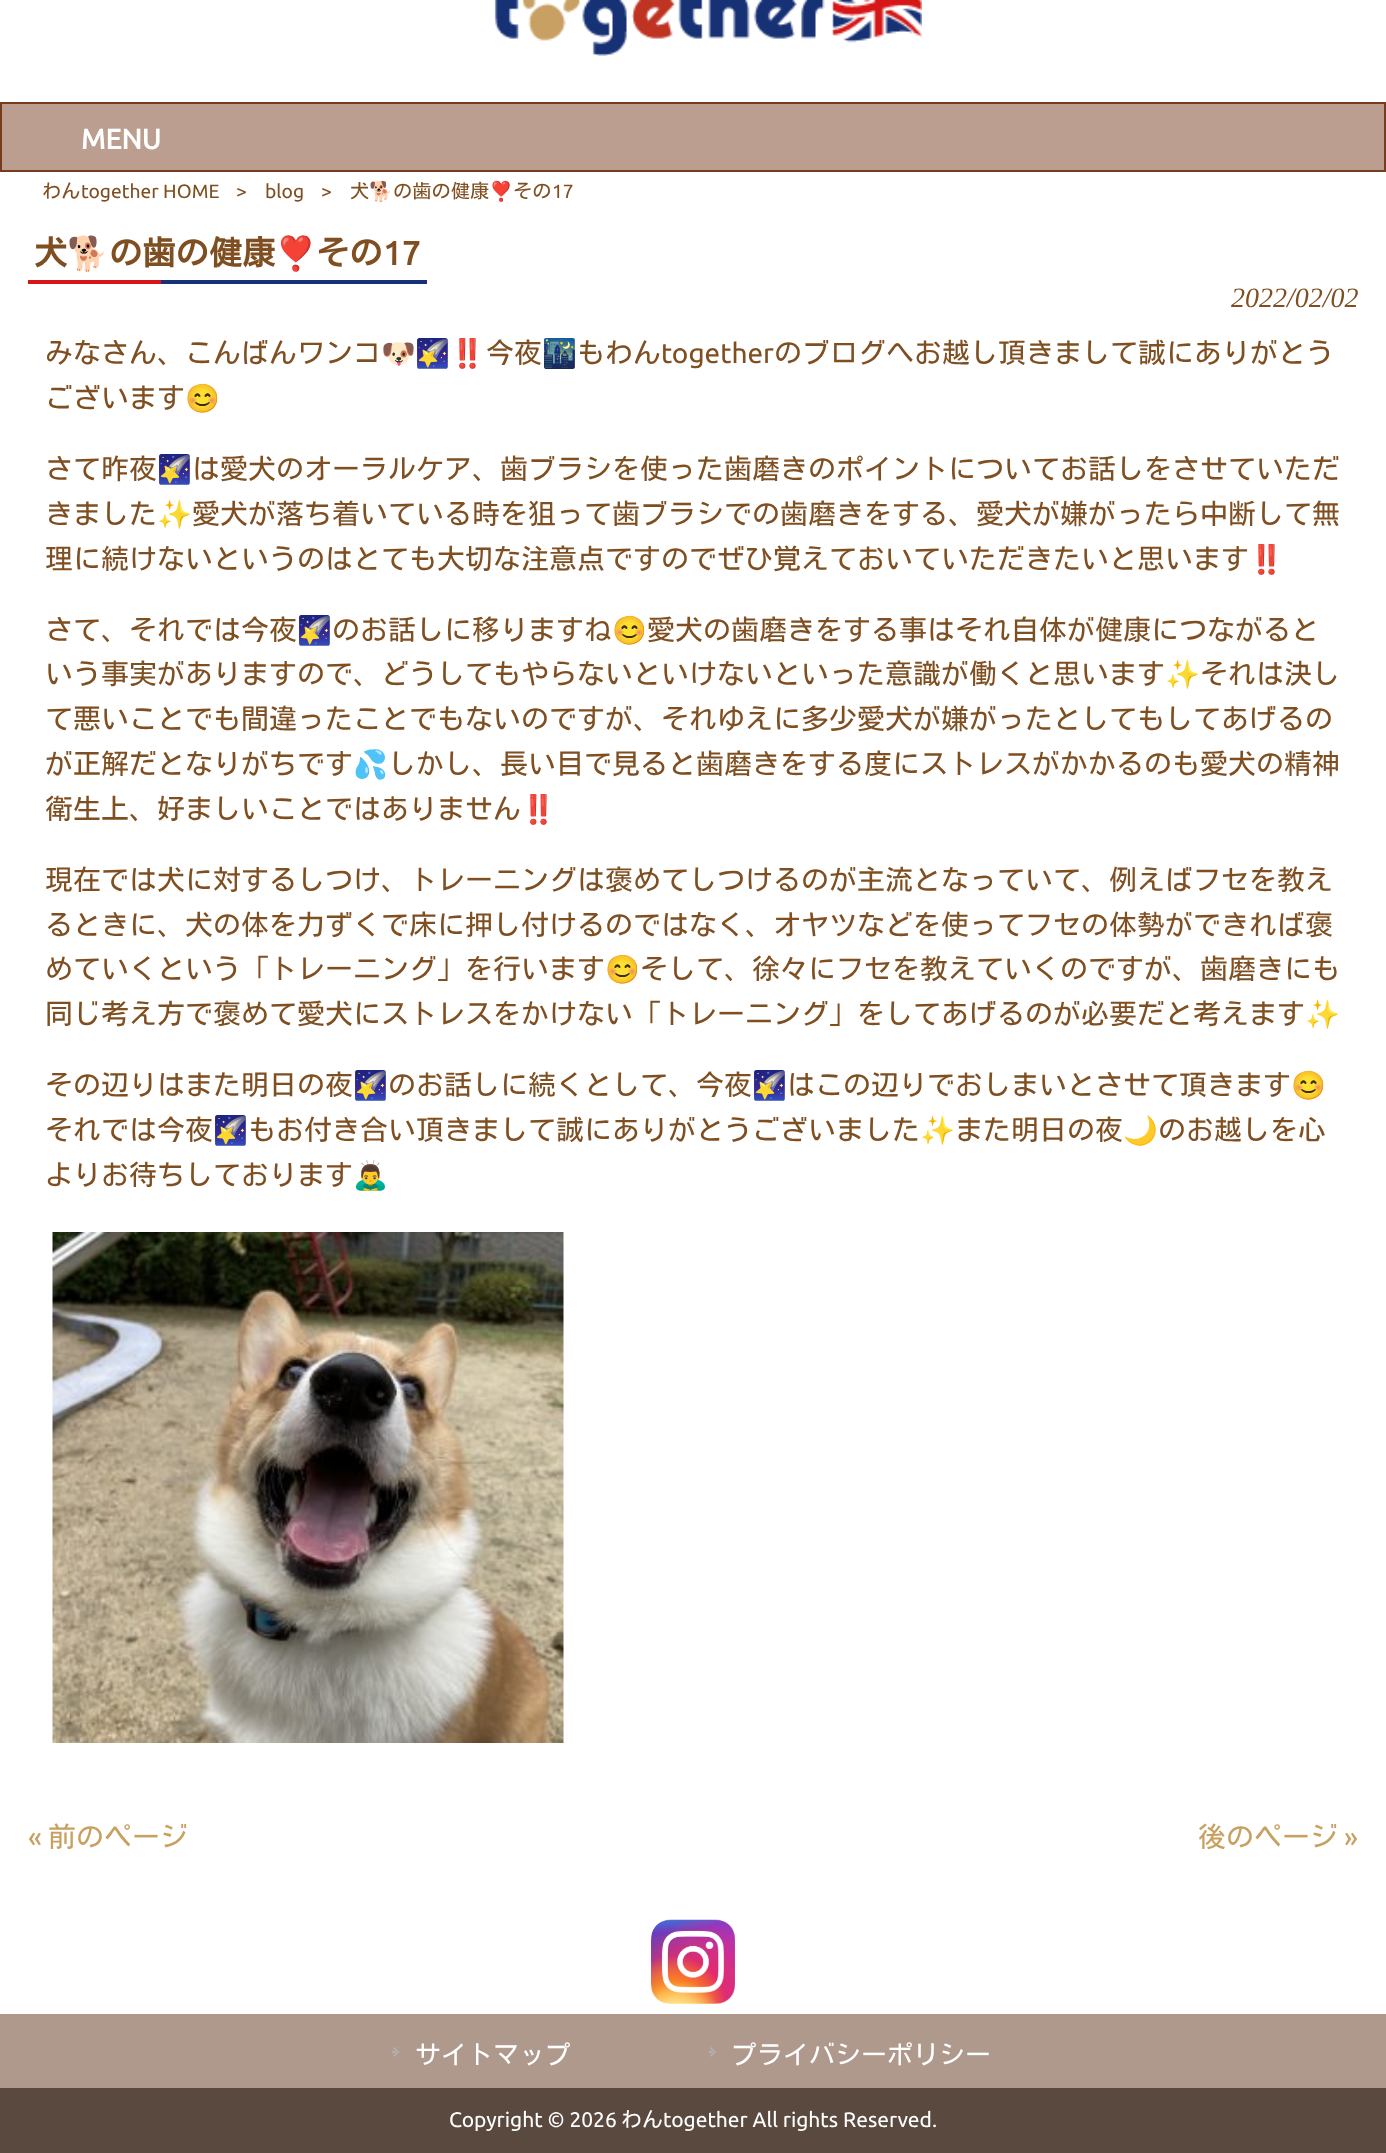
<!DOCTYPE html>
<meta charset="utf-8">
<style>body { margin: 0 } canvas { display: block }</style>
<canvas id="canvas" width="1386" height="2153"></canvas>
<script type="module">
  const canvas = document.getElementById("canvas");
  const g = canvas.getContext("2d");
  g.miterLimit = 4;
  g.fontKerning = "normal";
  function drawText(s, x, y, [font, color]) {
    g.font = font;
    g.fillStyle = color;
    g.fillText(s, x, y);
  }
  function fillBox(x, y, w, h, color) {
    g.fillStyle = color;
    g.fillRect(x, y, w, h);
  }
  async function drawPicture(src, x, y, w, h) {
    const img = new Image();
    img.src = src;
    await img.decode();
    g.drawImage(img, x, y, w, h);
  }

  const s1 = ["bold 28px Ubuntu", "#FFFFFF"];
  const s2 = ["19.25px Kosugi", "#7F4F21"];
  const s3 = ["19.25px Ubuntu", "#7F4F21"];
  const s4 = ["19.25px Noto Color Emoji", "#7F4F21"];
  const s5 = ["bold 33.25px Kosugi", "#7F4F21"];
  const s6 = ["bold 33.25px Noto Color Emoji", "#7F4F21"];
  const s7 = ["bold 33.25px Ubuntu", "#7F4F21"];
  const s8 = ["italic 28px Liberation Serif", "#7F4F21"];
  const s9 = ["28px Kosugi", "#7F4F21"];
  const s10 = ["28px Noto Color Emoji", "#7F4F21"];
  const s11 = ["28px Ubuntu", "#7F4F21"];
  const s12 = ["28px Ubuntu", "#C8A161"];
  const s13 = ["28px Kosugi", "#C8A161"];
  const s14 = ["26px Kosugi", "#FFFFFF"];
  const s15 = ["21px Ubuntu", "#FFFFFF"];
  const s16 = ["21px Kosugi", "#FFFFFF"];

  fillBox(0, 0, 1386, 2153, "#FFFFFF");
  await drawPicture("pic1.png", 494, 0, 428, 56);
  g.fillStyle = "#BB9E8F";
  g.beginPath();
  g.rect(1, 103, 1384, 68);
  g.fill();
  g.strokeStyle = "#773C1E";
  g.lineWidth = 2;
  g.stroke();
  drawText("MENU", 81, 149, s1);
  drawText("わん", 42, 198, s2);
  drawText("together HOME", 81, 198, s3);
  drawText(">", 236, 198, s3);
  drawText("blog", 265, 198, s3);
  drawText(">", 321, 198, s3);
  drawText("犬", 350, 198, s2);
  drawText("🐕", 369, 198, s4);
  drawText("の歯の健康", 393, 198, s2);
  drawText("❣️", 489, 198, s4);
  drawText("その", 513, 198, s2);
  drawText("17", 552, 198, s3);
  fillBox(161, 280, 266, 4, "#173176");
  drawText("犬", 34, 265, s5);
  drawText("🐕", 67, 265, s6);
  drawText("の歯の健康", 109, 265, s5);
  drawText("❣️", 275, 265, s6);
  drawText("その", 316, 265, s5);
  drawText("17", 383, 265, s7);
  fillBox(28, 280, 133, 4, "#D81617");
  drawText("2022/02/02", 1231, 307, s8);
  drawText("みなさん、こんばんワンコ", 45, 363, s9);
  drawText("🐶🌠‼️", 381, 363, s10);
  drawText("今夜", 486, 363, s9);
  drawText("🌃", 542, 363, s10);
  drawText("もわん", 577, 363, s9);
  drawText("together", 661, 363, s11);
  drawText("のブログへお越し頂きまして誠にありがとう", 774, 363, s9);
  drawText("ございます", 45, 408, s9);
  drawText("😊", 185, 408, s10);
  drawText("さて昨夜", 45, 479, s9);
  drawText("🌠", 157, 479, s10);
  drawText("は愛犬のオーラルケア、歯ブラシを使った歯磨きのポイントについてお話しをさせていただ", 192, 479, s9);
  drawText("きました", 45, 524, s9);
  drawText("✨", 157, 524, s10);
  drawText("愛犬が落ち着いている時を狙って歯ブラシでの歯磨きをする、愛犬が嫌がったら中断して無", 192, 524, s9);
  drawText("理に続けないというのはとても大切な注意点ですのでぜひ覚えておいていただきたいと思います", 45, 569, s9);
  drawText("‼️", 1249, 569, s10);
  drawText("さて、それでは今夜", 45, 640, s9);
  drawText("🌠", 297, 640, s10);
  drawText("のお話しに移りますね", 332, 640, s9);
  drawText("😊", 612, 640, s10);
  drawText("愛犬の歯磨きをする事はそれ自体が健康につながると", 647, 640, s9);
  drawText("いう事実がありますので、どうしてもやらないといけないといった意識が働くと思います", 45, 684, s9);
  drawText("✨", 1165, 684, s10);
  drawText("それは決し", 1200, 684, s9);
  drawText("て悪いことでも間違ったことでもないのですが、それゆえに多少愛犬が嫌がったとしてもしてあげるの", 45, 729, s9);
  drawText("が正解だとなりがちです", 45, 774, s9);
  drawText("💦", 353, 774, s10);
  drawText("しかし、長い目で見ると歯磨きをする度にストレスがかかるのも愛犬の精神", 388, 774, s9);
  drawText("衛生上、好ましいことではありません", 45, 819, s9);
  drawText("‼️", 521, 819, s10);
  drawText("現在では犬に対するしつけ、トレーニングは褒めてしつけるのが主流となっていて、例えばフセを教え", 45, 890, s9);
  drawText("るときに、犬の体を力ずくで床に押し付けるのではなく、オヤツなどを使ってフセの体勢ができれば褒", 45, 935, s9);
  drawText("めていくという「トレーニング」を行います", 45, 979, s9);
  drawText("😊", 605, 979, s10);
  drawText("そして、徐々にフセを教えていくのですが、歯磨きにも", 640, 979, s9);
  drawText("同じ考え方で褒めて愛犬にストレスをかけない「トレーニング」をしてあげるのが必要だと考えます", 45, 1024, s9);
  drawText("✨", 1305, 1024, s10);
  drawText("その辺りはまた明日の夜", 45, 1095, s9);
  drawText("🌠", 353, 1095, s10);
  drawText("のお話しに続くとして、今夜", 388, 1095, s9);
  drawText("🌠", 752, 1095, s10);
  drawText("はこの辺りでおしまいとさせて頂きます", 787, 1095, s9);
  drawText("😊", 1291, 1095, s10);
  drawText("それでは今夜", 45, 1140, s9);
  drawText("🌠", 213, 1140, s10);
  drawText("もお付き合い頂きまして誠にありがとうございました", 248, 1140, s9);
  drawText("✨", 920, 1140, s10);
  drawText("また明日の夜", 955, 1140, s9);
  drawText("🌙", 1123, 1140, s10);
  drawText("のお越しを心", 1158, 1140, s9);
  drawText("よりお待ちしております", 45, 1185, s9);
  drawText("🙇‍♂️", 353, 1185, s10);
  await drawPicture("pic2.png", 52, 1232, 512, 511);
  drawText("«", 28, 1847, s12);
  drawText("前のページ", 48, 1847, s13);
  drawText("後のページ", 1198, 1847, s13);
  drawText("»", 1344, 1847, s12);
  await drawPicture("pic3.png", 651, 1919, 84, 85);
  fillBox(0, 2014, 1386, 74, "#AE998C");
  await drawPicture("pic4.png", 391, 2047, 9, 10);
  drawText("サイトマップ", 415, 2064, s14);
  await drawPicture("pic5.png", 708, 2047, 9, 10);
  drawText("プライバシーポリシー", 731, 2064, s14);
  fillBox(0, 2088, 1386, 65, "#59493F");
  drawText("Copyright © 2026", 449, 2127, s15);
  drawText("わん", 621, 2127, s16);
  drawText("together All rights Reserved.", 663, 2127, s15);
</script>
